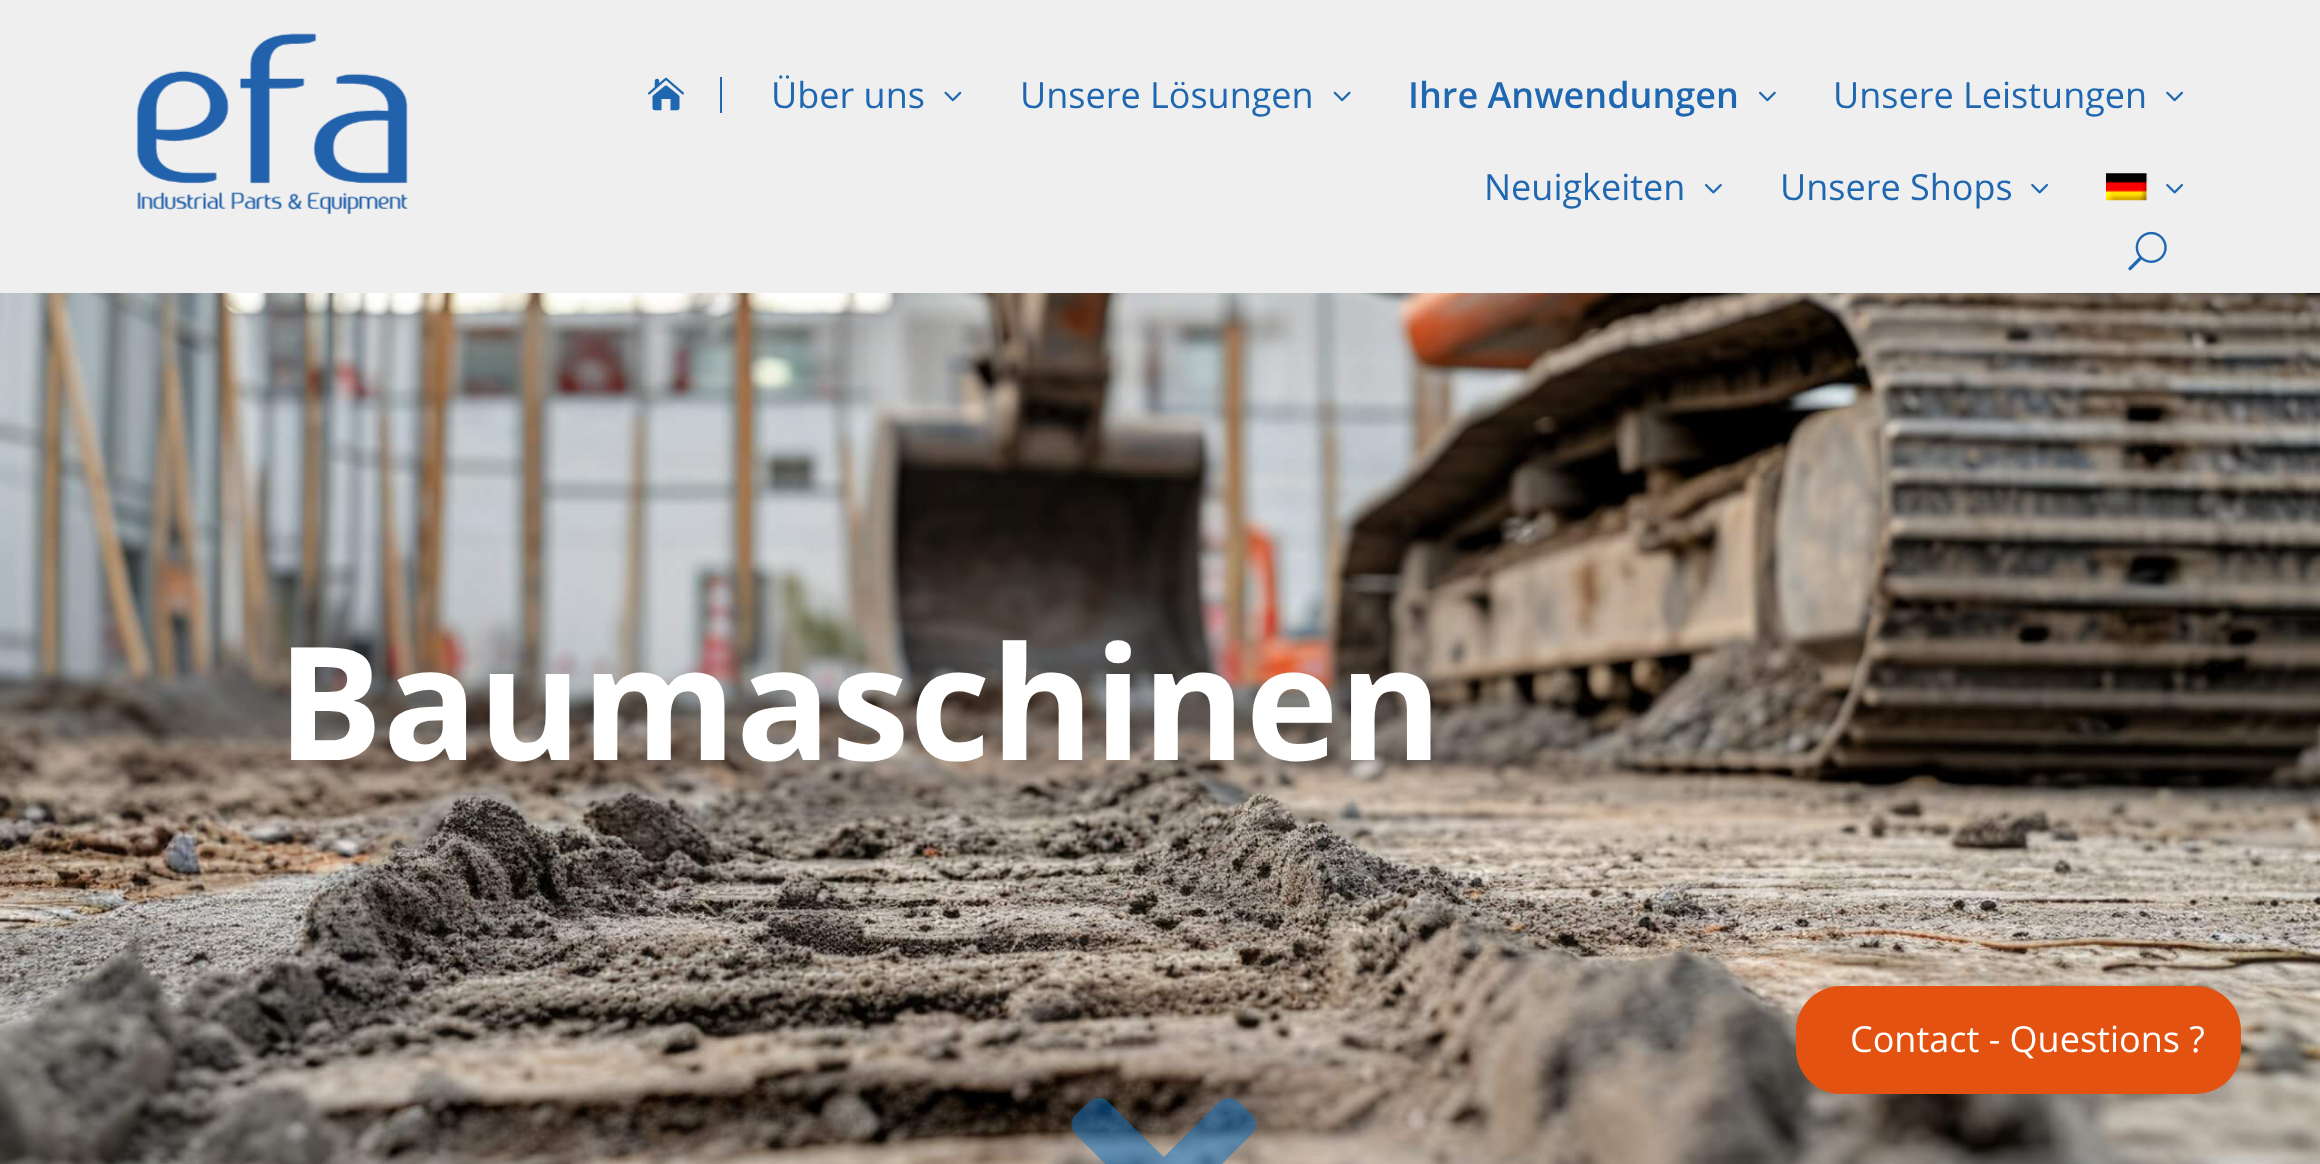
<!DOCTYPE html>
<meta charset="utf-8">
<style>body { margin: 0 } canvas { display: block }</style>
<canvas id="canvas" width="2320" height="1164"></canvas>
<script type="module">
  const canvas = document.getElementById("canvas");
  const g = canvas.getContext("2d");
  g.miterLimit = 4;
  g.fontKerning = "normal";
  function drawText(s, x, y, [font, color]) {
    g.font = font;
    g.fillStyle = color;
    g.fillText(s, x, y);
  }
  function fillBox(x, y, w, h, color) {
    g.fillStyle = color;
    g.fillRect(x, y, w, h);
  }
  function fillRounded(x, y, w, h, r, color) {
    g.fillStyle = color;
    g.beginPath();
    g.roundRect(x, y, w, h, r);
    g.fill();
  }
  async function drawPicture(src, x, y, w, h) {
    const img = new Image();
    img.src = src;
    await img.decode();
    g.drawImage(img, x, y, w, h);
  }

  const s1 = ["36px Open Sans", "#1F68B1"];
  const s2 = ["600 36px Open Sans", "#1F68B1"];
  const s3 = ["bold 157.5px Open Sans", "#FFFFFF"];
  const s4 = ["36px Open Sans", "#FFFFFF"];

  fillBox(0, 0, 2320, 1164, "#FFFFFF");
  fillBox(0, 0, 2320, 293, "#EFEFEF");
  await drawPicture("pic1.png", 136, 33, 272, 181);
  await drawPicture("pic2.png", 648, 77, 36, 34);
  fillBox(720, 77, 2, 36, "#1F68B1");
  drawText("Über uns", 771, 108, s1);
  await drawPicture("pic3.png", 944, 91, 18, 11);
  drawText("Unsere Lösungen", 1020, 108, s1);
  await drawPicture("pic4.png", 1333, 91, 18, 11);
  drawText("Ihre Anwendungen", 1408, 108, s2);
  await drawPicture("pic5.png", 1759, 91, 17, 11);
  drawText("Unsere Leistungen", 1833, 108, s1);
  await drawPicture("pic6.png", 2166, 91, 17, 11);
  drawText("Neuigkeiten", 1484, 200, s1);
  await drawPicture("pic7.png", 1705, 184, 17, 10);
  drawText("Unsere Shops", 1780, 200, s1);
  await drawPicture("pic8.png", 2031, 184, 17, 10);
  await drawPicture("pic9.png", 2106, 173, 42, 28);
  await drawPicture("pic8.png", 2166, 184, 17, 10);
  await drawPicture("pic10.png", 2128, 231, 39, 40);
  await drawPicture("pic11.png", 0, 293, 2320, 871);
  drawText("Baumaschinen", 277, 760, s3);
  await drawPicture("pic12.png", 1071, 1097, 185, 67);
  g.fillStyle = "rgba(0, 0, 0, 0.06)";
  g.filter = "blur(4.5px)";
  g.beginPath();
  g.roundRect(1798, 992, 441, 104, 43);
  g.fill();
  g.filter = "none";
  g.fillStyle = "rgba(0, 0, 0, 0.1)";
  g.filter = "blur(7px)";
  g.beginPath();
  g.roundRect(1798, 997, 441, 103, 43);
  g.fill();
  g.filter = "none";
  fillRounded(1796, 986, 445, 108, 45, "#E35210");
  drawText("Contact - Questions ?", 1850, 1052, s4);
</script>
